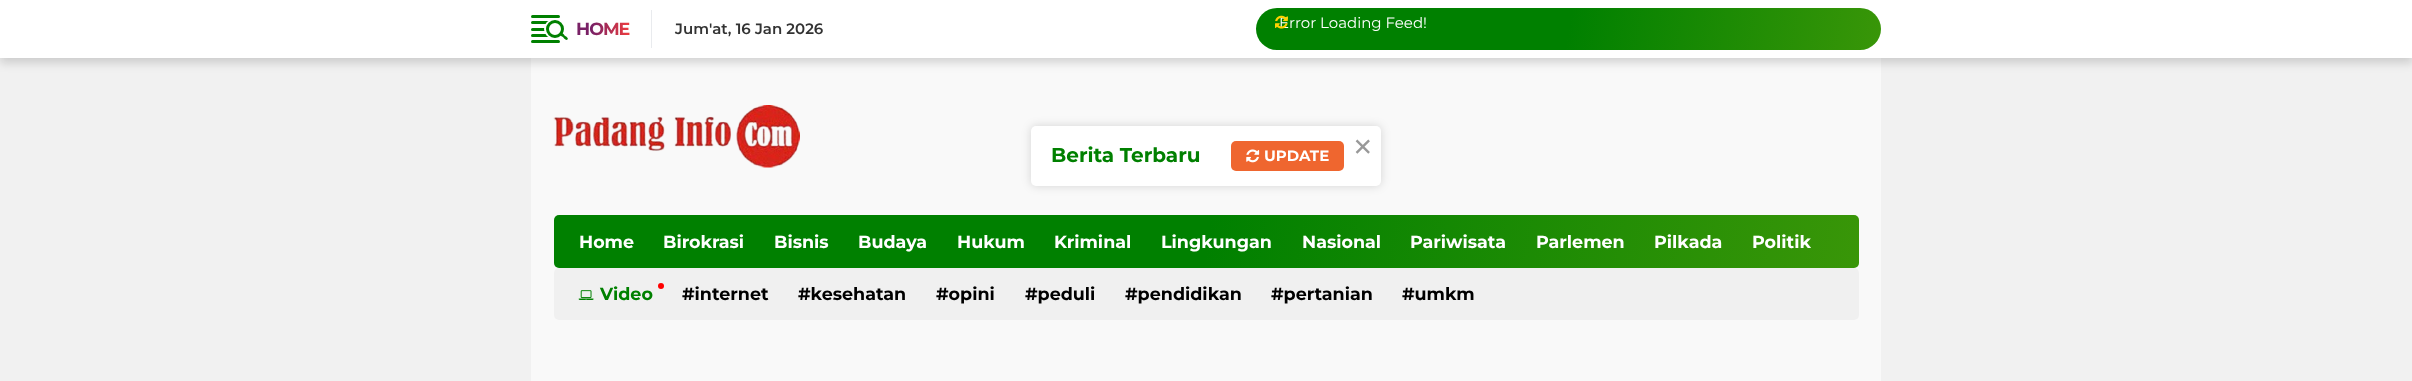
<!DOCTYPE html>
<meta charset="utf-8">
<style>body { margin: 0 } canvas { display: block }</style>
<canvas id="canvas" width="2412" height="381"></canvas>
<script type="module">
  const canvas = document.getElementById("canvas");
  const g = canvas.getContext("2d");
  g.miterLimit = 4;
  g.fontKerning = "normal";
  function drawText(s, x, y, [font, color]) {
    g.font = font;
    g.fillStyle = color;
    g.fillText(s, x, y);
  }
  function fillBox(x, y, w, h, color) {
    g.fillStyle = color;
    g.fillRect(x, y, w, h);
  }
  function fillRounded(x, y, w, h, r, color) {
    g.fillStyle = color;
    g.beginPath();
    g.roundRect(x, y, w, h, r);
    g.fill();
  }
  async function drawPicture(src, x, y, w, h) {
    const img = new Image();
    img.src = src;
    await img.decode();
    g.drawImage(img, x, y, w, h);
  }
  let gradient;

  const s1 = ["600 15px Montserrat", "#333333"];
  const s2 = ["15px Montserrat", "#FFFFFF"];
  const s3 = ["bold 20px Montserrat", "#008000"];
  const s4 = ["bold 15px Montserrat", "#FFFFFF"];
  const s5 = ["41px Montserrat", "#999999"];
  const s6 = ["bold 17.5px Montserrat", "#FFFFFF"];
  const s7 = ["bold 17.5px Montserrat", "#008000"];
  const s8 = ["bold 17.5px Montserrat", "#000000"];

  fillBox(0, 0, 2412, 381, "#F1F1F1");
  fillBox(531, 58, 1350, 323, "#F9F9F9");
  g.fillStyle = "rgba(0, 0, 0, 0.15)";
  g.filter = "blur(5px)";
  g.beginPath();
  g.rect(0, 5, 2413, 58);
  g.fill();
  g.filter = "none";
  fillBox(0, 0, 2412, 58, "#FFFFFF");
  fillRounded(531, 15, 29, 3, 1.5, "#008000");
  fillRounded(531, 21, 29, 3, 1.5, "#008000");
  fillRounded(531, 28, 29, 3, 1.5, "#008000");
  fillRounded(531, 34, 29, 3, 1.5, "#008000");
  g.fillStyle = "#FFFFFF";
  g.beginPath();
  g.arc(554, 29, 10, 0, Math.PI * 2);
  g.fill();
  g.beginPath();
  g.arc(555, 29, 7.5, 0, Math.PI * 2);
  g.strokeStyle = "#008000";
  g.lineWidth = 3;
  g.stroke();
  g.fillStyle = "#008000";
  g.beginPath();
  g.moveTo(560, 33);
  g.bezierCurveTo(561.5, 31.5, 564, 34.5, 564.5, 35.5);
  g.bezierCurveTo(565.5, 36, 569, 38, 567.5, 39.5);
  g.bezierCurveTo(566, 41, 563.5, 38, 563, 37);
  g.bezierCurveTo(562, 36.5, 558.5, 34.5, 560, 33);
  g.closePath();
  g.fill();
  fillRounded(531, 40, 29, 3, 1.5, "#008000");
  fillBox(651, 10, 1, 38, "#E9EBEE");
  g.letterSpacing = "-1px";
  g.font = "bold 17.5px Montserrat";
  gradient = g.createLinearGradient(576, 29, 629, 29);
  gradient.addColorStop(0.3, "#792166");
  gradient.addColorStop(1, "#ED3C3F");
  g.fillStyle = gradient;
  g.fillText("HOME", 576, 35);
  g.letterSpacing = "0px";
  drawText("Jum'at, 16 Jan 2026", 675, 34, s1);
  gradient = g.createLinearGradient(1262, -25, 1875, 83);
  gradient.addColorStop(0.5, "#008000");
  gradient.addColorStop(1, "#399608");
  g.fillStyle = gradient;
  g.beginPath();
  g.roundRect(1256, 8, 625, 42, 21);
  g.fill();
  drawText("Error Loading Feed!", 1279, 28, s2);
  await drawPicture("pic1.png", 1275, 15, 13, 14);
  await drawPicture("pic2.png", 553, 105, 247, 63);
  g.fillStyle = "rgba(0, 0, 0, 0.15)";
  g.filter = "blur(5px)";
  g.beginPath();
  g.roundRect(1031, 126, 350, 60, 5);
  g.fill();
  g.filter = "none";
  fillRounded(1031, 126, 350, 60, 5, "#FFFFFF");
  drawText("Berita Terbaru", 1051, 162, s3);
  fillRounded(1231, 141, 113, 30, 5, "#EF662F");
  await drawPicture("pic3.png", 1246, 149, 14, 14);
  drawText("UPDATE", 1264, 161, s4);
  drawText("×", 1351, 161, s5);
  gradient = g.createLinearGradient(569, 129, 1844, 354);
  gradient.addColorStop(0.5, "#008000");
  gradient.addColorStop(1, "#399608");
  g.fillStyle = gradient;
  g.beginPath();
  g.roundRect(554, 215, 1305, 53, 5);
  g.fill();
  drawText("Home", 579, 248, s6);
  drawText("Birokrasi", 663, 248, s6);
  drawText("Bisnis", 774, 248, s6);
  drawText("Budaya", 858, 248, s6);
  drawText("Hukum", 957, 248, s6);
  drawText("Kriminal", 1054, 248, s6);
  drawText("Lingkungan", 1161, 248, s6);
  drawText("Nasional", 1302, 248, s6);
  drawText("Pariwisata", 1410, 248, s6);
  drawText("Parlemen", 1536, 248, s6);
  drawText("Pilkada", 1654, 248, s6);
  drawText("Politik", 1752, 248, s6);
  fillRounded(554, 268, 1305, 52, 5, "#F0F0F0");
  await drawPicture("pic4.png", 578, 290, 16, 10);
  drawText("Video", 600, 300, s7);
  g.fillStyle = "#FF0000";
  g.beginPath();
  g.arc(661, 286, 3, 0, Math.PI * 2);
  g.fill();
  drawText("#internet", 682, 300, s8);
  drawText("#kesehatan", 798, 300, s8);
  drawText("#opini", 936, 300, s8);
  drawText("#peduli", 1025, 300, s8);
  drawText("#pendidikan", 1125, 300, s8);
  drawText("#pertanian", 1271, 300, s8);
  drawText("#umkm", 1402, 300, s8);
</script>
